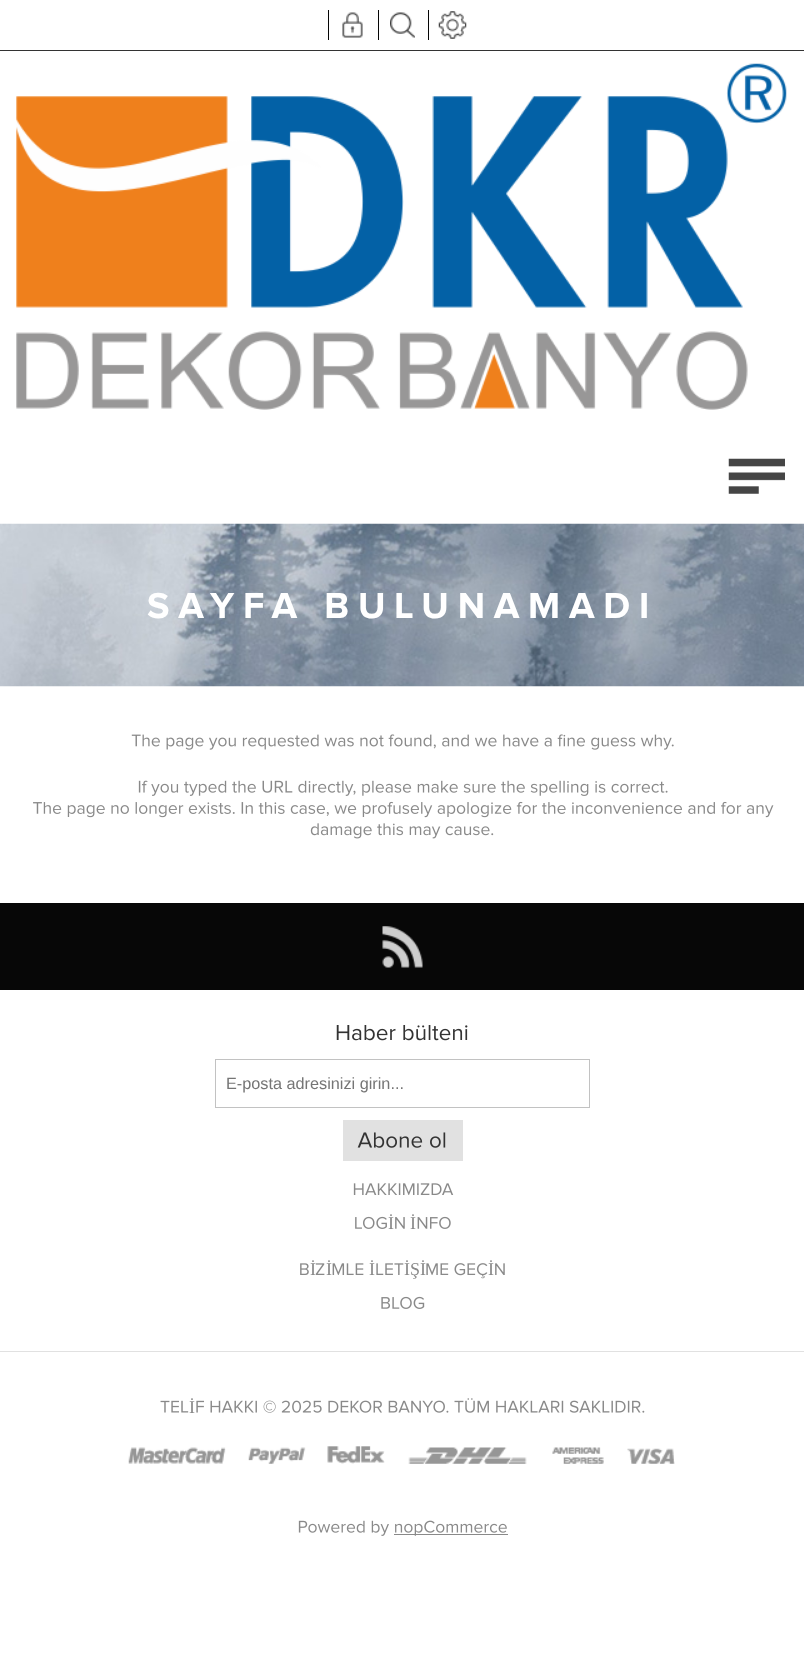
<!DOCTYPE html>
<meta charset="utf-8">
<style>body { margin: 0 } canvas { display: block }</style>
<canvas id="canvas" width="804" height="1679"></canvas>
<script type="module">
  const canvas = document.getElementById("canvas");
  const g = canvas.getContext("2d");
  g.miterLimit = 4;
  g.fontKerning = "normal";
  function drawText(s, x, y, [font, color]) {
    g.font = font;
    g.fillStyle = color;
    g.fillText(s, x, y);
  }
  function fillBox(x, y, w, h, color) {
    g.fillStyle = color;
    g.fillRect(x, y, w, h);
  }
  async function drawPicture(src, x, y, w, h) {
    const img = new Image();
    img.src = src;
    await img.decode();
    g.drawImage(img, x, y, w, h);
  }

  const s1 = ["bold 37.5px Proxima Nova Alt", "#FFFFFF"];
  const s2 = ["16.25px Liberation Sans", "#757575"];
  const s3 = ["18px Liberation Serif", "#898989"];

  fillBox(0, 0, 804, 1679, "#FFFFFF");
  fillBox(0, 50, 804, 1, "#333333");
  await drawPicture("pic1.png", 342, 12, 21, 26);
  fillBox(328, 10, 1, 30, "#060606");
  await drawPicture("pic2.png", 390, 12, 25, 26);
  fillBox(378, 10, 1, 30, "#060606");
  await drawPicture("pic3.png", 438, 11, 29, 28);
  fillBox(428, 10, 1, 30, "#060606");
  await drawPicture("pic4.png", 16, 63, 771, 347);
  await drawPicture("pic5.png", 728, 458, 57, 36);
  await drawPicture("pic6.png", 0, 523, 804, 164);
  g.letterSpacing = "8.75px";
  drawText("SAYFA BULUNAMADI", 147, 618, s1);
  await drawPicture("pic7.png", 131, 734, 543, 16);
  await drawPicture("pic8.png", 138, 780, 530, 16);
  await drawPicture("pic9.png", 33, 801, 741, 17);
  await drawPicture("pic10.png", 310, 823, 184, 16);
  fillBox(0, 903, 804, 87, "#070707");
  await drawPicture("pic11.png", 382, 926, 41, 42);
  fillBox(0, 1351, 804, 1, "#E1E1E1");
  await drawPicture("pic12.png", 336, 1025, 132, 16);
  g.strokeStyle = "#C2C2C2";
  g.strokeRect(215.5, 1059.5, 374, 48);
  g.letterSpacing = "0px";
  drawText("E-posta adresinizi girin...", 226, 1089, s2);
  fillBox(343, 1120, 120, 41, "#E1E1E1");
  await drawPicture("pic13.png", 357, 1132, 89, 16);
  await drawPicture("pic14.png", 353, 1183, 101, 12);
  await drawPicture("pic15.png", 355, 1216, 32, 13);
  drawText("İ", 388, 1229, s3);
  await drawPicture("pic16.png", 395, 1217, 10, 12);
  drawText("İ", 410, 1229, s3);
  await drawPicture("pic17.png", 417, 1216, 34, 13);
  await drawPicture("pic18.png", 300, 1263, 9, 12);
  drawText("İ", 310, 1275, s3);
  await drawPicture("pic19.png", 315, 1263, 10, 12);
  drawText("İ", 326, 1275, s3);
  await drawPicture("pic20.png", 332, 1263, 32, 12);
  drawText("İ", 369, 1275, s3);
  await drawPicture("pic21.png", 376, 1263, 28, 12);
  drawText("İŞİ", 404, 1275, s3);
  await drawPicture("pic22.png", 426, 1263, 62, 16);
  drawText("İ", 488, 1275, s3);
  await drawPicture("pic23.png", 495, 1263, 10, 12);
  await drawPicture("pic24.png", 381, 1296, 44, 13);
  await drawPicture("pic25.png", 160, 1400, 29, 13);
  drawText("İ", 189, 1413, s3);
  await drawPicture("pic26.png", 196, 1398, 449, 15);
  await drawPicture("pic27.png", 128, 1447, 98, 17);
  await drawPicture("pic28.png", 248, 1447, 58, 17);
  await drawPicture("pic29.png", 327, 1446, 58, 18);
  await drawPicture("pic30.png", 408, 1447, 119, 17);
  await drawPicture("pic31.png", 552, 1447, 52, 17);
  await drawPicture("pic32.png", 627, 1448, 48, 16);
  await drawPicture("pic33.png", 298, 1520, 91, 16);
  fillBox(394, 1534, 114, 1, "#898989");
  await drawPicture("pic34.png", 395, 1520, 112, 16);
</script>
